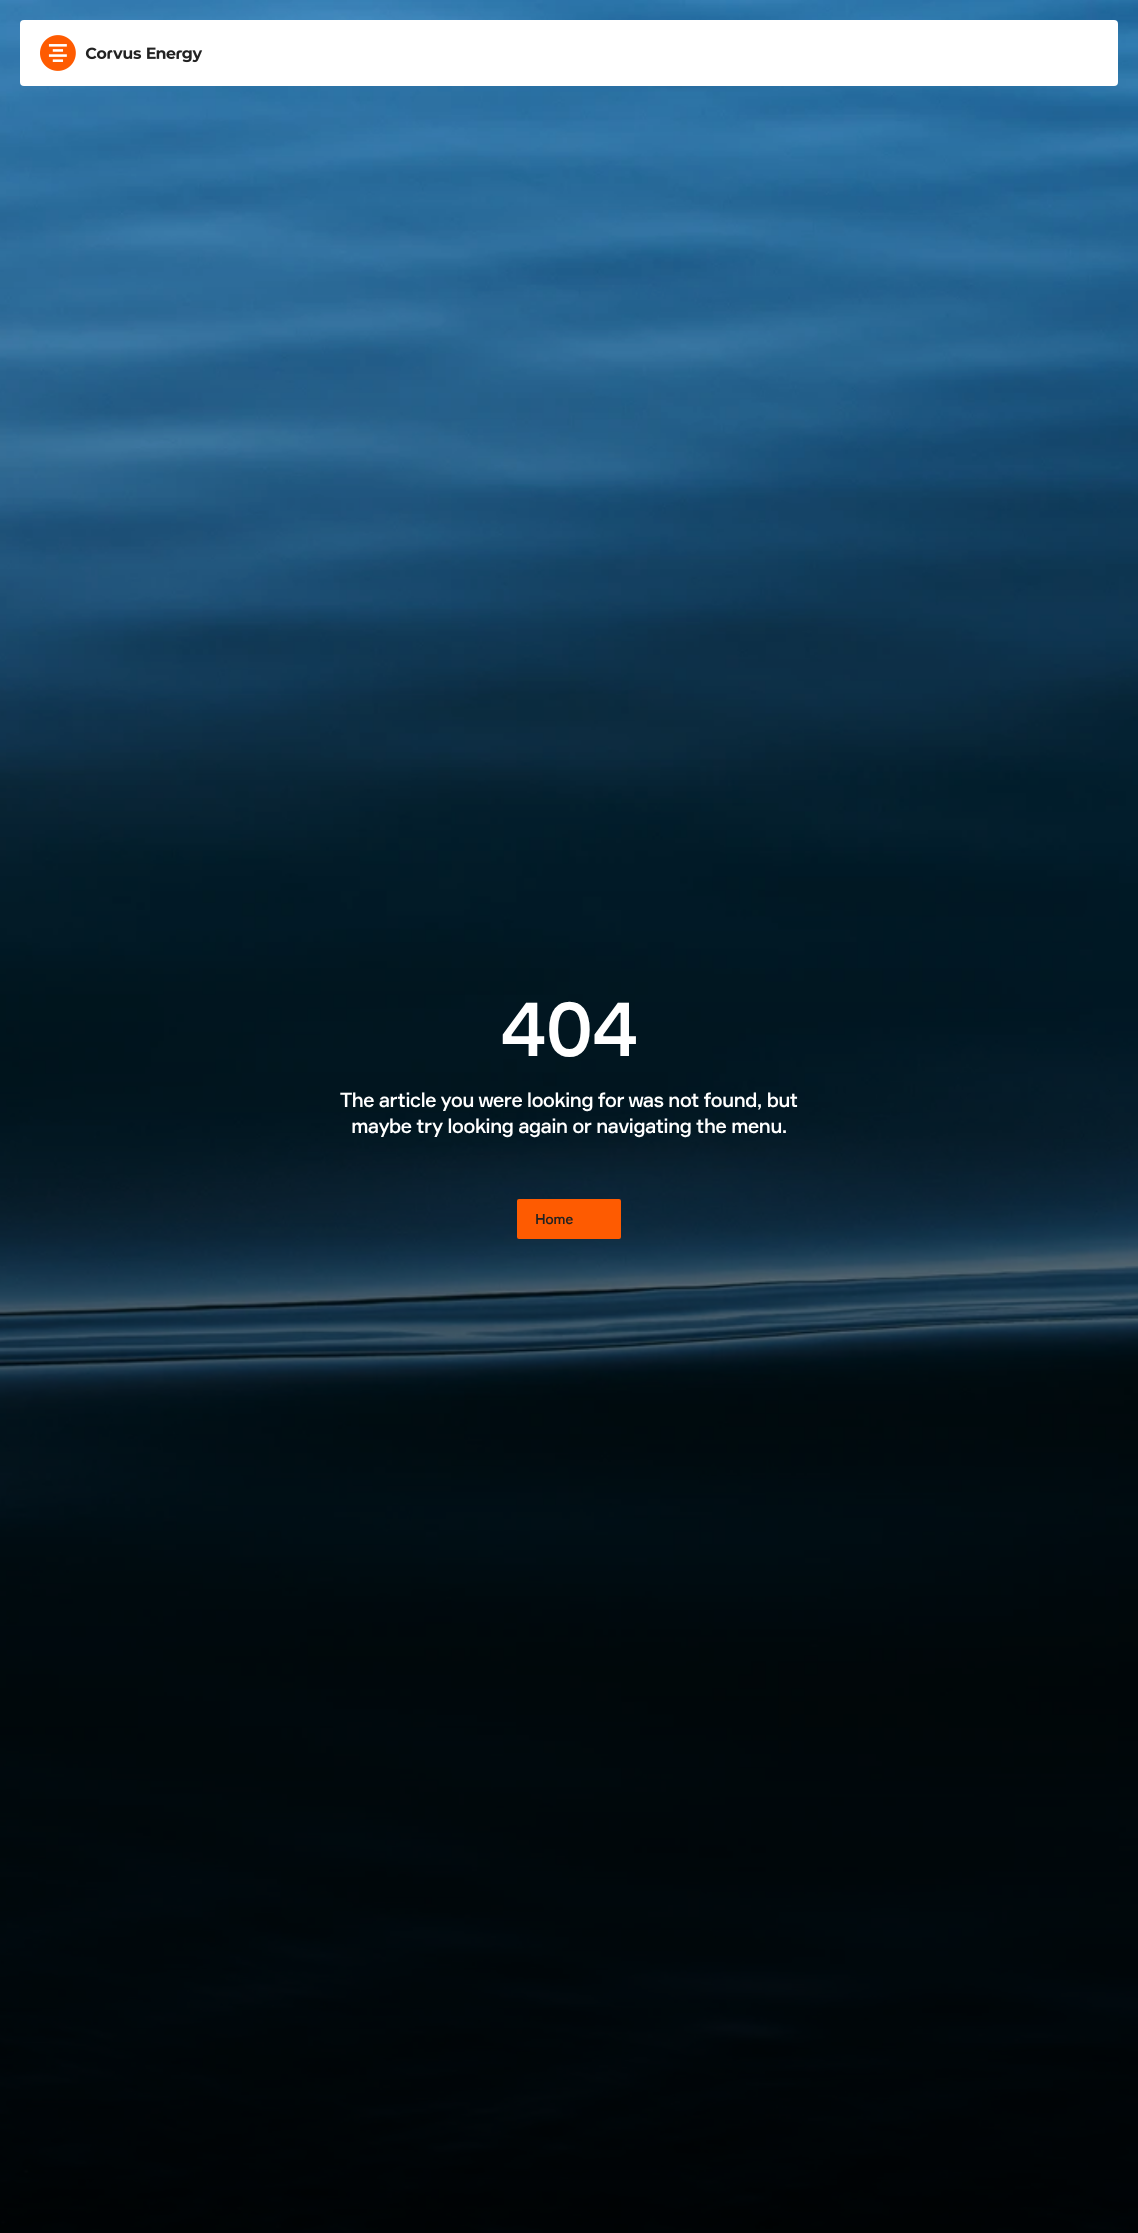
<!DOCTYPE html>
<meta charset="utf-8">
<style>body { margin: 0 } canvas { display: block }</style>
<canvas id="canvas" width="1138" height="2233"></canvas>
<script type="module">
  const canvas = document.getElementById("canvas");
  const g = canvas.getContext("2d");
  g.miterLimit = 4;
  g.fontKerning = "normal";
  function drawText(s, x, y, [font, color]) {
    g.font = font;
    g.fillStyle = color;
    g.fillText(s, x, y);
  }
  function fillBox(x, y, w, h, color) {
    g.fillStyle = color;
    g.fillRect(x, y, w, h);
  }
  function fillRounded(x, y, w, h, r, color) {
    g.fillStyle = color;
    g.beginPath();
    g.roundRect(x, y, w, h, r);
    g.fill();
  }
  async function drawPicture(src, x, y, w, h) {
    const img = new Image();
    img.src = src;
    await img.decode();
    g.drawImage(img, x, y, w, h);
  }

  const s1 = ["500 76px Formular", "#FFFFFF"];
  const s2 = ["500 20px Formular", "#FFFFFF"];
  const s3 = ["500 14px Formular", "#222222"];

  fillBox(0, 0, 1138, 2233, "#FFFFFF");
  await drawPicture("pic2.png", 0, 0, 1138, 2233);
  fillRounded(20, 20, 1098, 66, 4, "#FFFFFF");
  await drawPicture("pic1.png", 40, 35, 163, 36);
  g.letterSpacing = "-2px";
  drawText("404", 500, 1056, s1);
  g.letterSpacing = "-0.8px";
  drawText("The article you were looking for was not found, but", 340, 1107, s2);
  drawText("maybe try looking again or navigating the menu.", 351, 1133, s2);
  fillRounded(517, 1199, 104, 40, 2, "#FE5B01");
  g.letterSpacing = "-0.5px";
  drawText("Home", 535, 1224, s3);
</script>
